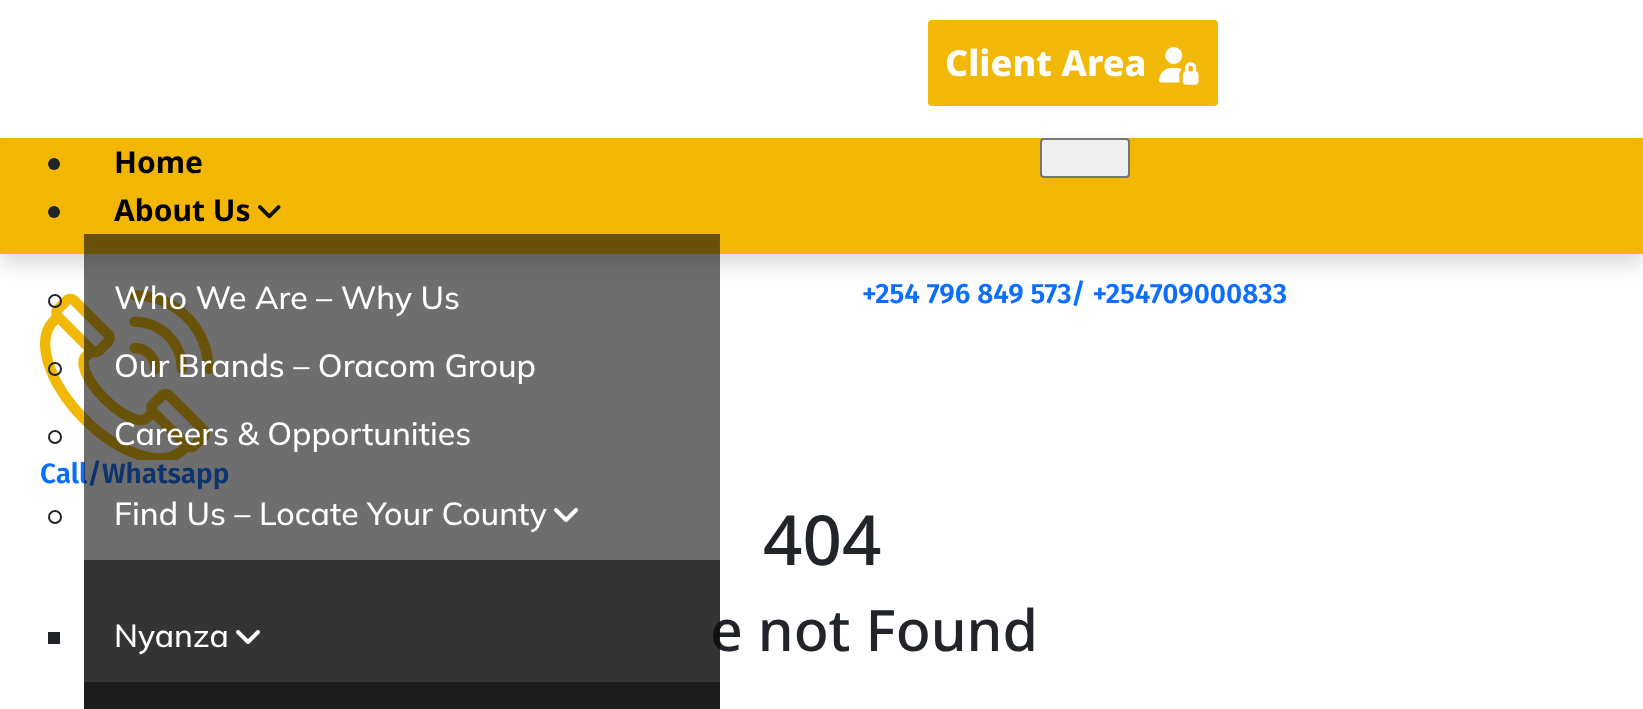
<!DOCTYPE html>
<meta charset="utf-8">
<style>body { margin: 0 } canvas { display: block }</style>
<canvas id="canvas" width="1643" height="709"></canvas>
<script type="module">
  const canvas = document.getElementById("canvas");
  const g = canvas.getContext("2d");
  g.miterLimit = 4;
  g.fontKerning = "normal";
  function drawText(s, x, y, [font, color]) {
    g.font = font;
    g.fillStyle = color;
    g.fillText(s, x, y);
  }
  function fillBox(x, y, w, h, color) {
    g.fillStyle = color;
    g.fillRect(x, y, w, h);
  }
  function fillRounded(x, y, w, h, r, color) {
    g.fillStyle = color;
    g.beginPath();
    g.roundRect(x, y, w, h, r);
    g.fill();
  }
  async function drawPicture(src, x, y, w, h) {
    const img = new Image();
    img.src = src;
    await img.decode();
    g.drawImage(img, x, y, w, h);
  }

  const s1 = ["800 36px Noto Sans", "#FFFFFF"];
  const s2 = ["bold 30px Noto Sans", "#000000"];
  const s3 = ["600 28px Fira Sans", "#0D6EFD"];
  const s4 = ["500 57.25px Noto Sans", "#212529"];
  const s5 = ["500 32px Mulish", "#FFFFFF"];
  const s6 = ["500 69px Noto Sans", "#212529"];

  fillBox(0, 0, 1643, 709, "#FFFFFF");
  fillRounded(928, 20, 290, 86, 4, "#F2B807");
  drawText("Client Area", 945, 76, s1);
  await drawPicture("pic1.png", 1159, 47, 40, 38);
  await drawPicture("pic5.png", 40, 290, 174, 170);
  g.fillStyle = "rgba(0, 0, 0, 0.15)";
  g.filter = "blur(10px)";
  g.beginPath();
  g.rect(0, 148, 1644, 116);
  g.fill();
  g.filter = "none";
  fillBox(0, 138, 1643, 116, "#F2B705");
  g.fillStyle = "#212529";
  g.beginPath();
  g.arc(54, 164, 6, 0, Math.PI * 2);
  g.fill();
  drawText("Home", 114, 173, s2);
  g.fillStyle = "#212529";
  g.beginPath();
  g.arc(54, 212, 6, 0, Math.PI * 2);
  g.fill();
  drawText("About Us", 114, 221, s2);
  await drawPicture("pic2.png", 258, 205, 23, 14);
  drawText("Call/Whatsapp", 40, 483, s3);
  drawText("e not Found", 710, 651, s4);
  fillBox(84, 234, 636, 475, "rgba(13, 13, 13, 0.6)");
  g.beginPath();
  g.arc(55, 301, 6, 0, Math.PI * 2);
  g.strokeStyle = "#212529";
  g.lineWidth = 2;
  g.stroke();
  drawText("Who We Are – Why Us", 114, 309, s5);
  g.beginPath();
  g.arc(55, 369, 6, 0, Math.PI * 2);
  g.stroke();
  drawText("Our Brands – Oracom Group", 114, 377, s5);
  g.beginPath();
  g.arc(55, 437, 6, 0, Math.PI * 2);
  g.stroke();
  drawText("Careers & Opportunities", 114, 445, s5);
  g.beginPath();
  g.arc(55, 517, 6, 0, Math.PI * 2);
  g.stroke();
  drawText("Find Us – Locate Your County", 114, 525, s5);
  await drawPicture("pic3.png", 554, 508, 24, 14);
  fillBox(84, 560, 636, 149, "rgba(13, 13, 13, 0.6)");
  fillBox(48, 632, 12, 12, "#212529");
  drawText("Nyanza", 114, 647, s5);
  await drawPicture("pic4.png", 236, 630, 24, 14);
  fillBox(84, 682, 636, 27, "rgba(13, 13, 13, 0.6)");
  g.fillStyle = "#EFEFEF";
  g.beginPath();
  g.roundRect(1041, 139, 88, 38, 3);
  g.fill();
  g.strokeStyle = "#767676";
  g.stroke();
  drawText("+254 796 849 573/ +254709000833", 862, 303, s3);
  drawText("404", 763, 565, s6);
</script>
